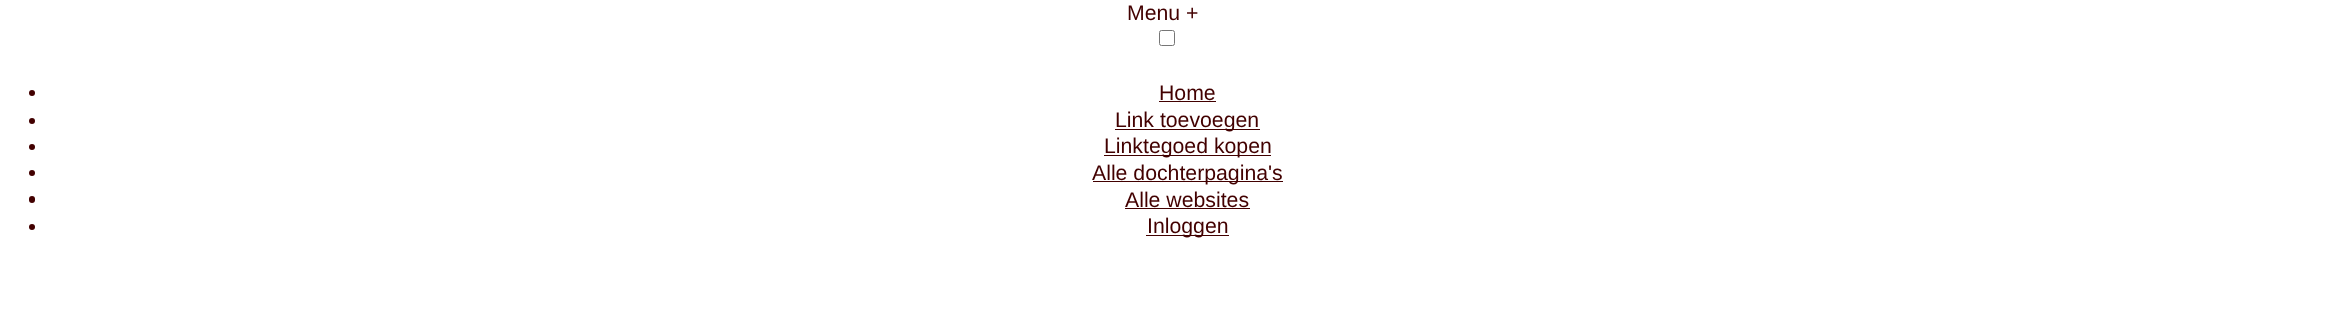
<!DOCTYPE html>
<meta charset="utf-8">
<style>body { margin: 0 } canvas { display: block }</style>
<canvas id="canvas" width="2325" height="323"></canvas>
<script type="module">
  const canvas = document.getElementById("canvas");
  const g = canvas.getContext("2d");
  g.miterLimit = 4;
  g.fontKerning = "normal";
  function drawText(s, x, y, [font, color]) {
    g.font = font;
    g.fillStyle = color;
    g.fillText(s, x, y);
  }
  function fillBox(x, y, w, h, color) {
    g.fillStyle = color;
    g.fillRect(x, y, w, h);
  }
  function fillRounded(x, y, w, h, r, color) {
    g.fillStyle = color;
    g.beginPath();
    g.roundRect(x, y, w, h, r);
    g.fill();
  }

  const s1 = ["21.25px Liberation Sans", "#420000"];

  fillBox(0, 0, 2325, 323, "#FFFFFF");
  drawText("Menu +", 1127, 20, s1);
  g.beginPath();
  g.roundRect(1159.5, 30.5, 15, 15, 2);
  g.strokeStyle = "#767676";
  g.stroke();
  g.beginPath();
  g.arc(32, 93, 3, 0, Math.PI * 2);
  g.fill();
  drawText("Home", 1159, 100, s1);
  fillBox(1159, 101, 57, 1, "#420000");
  g.beginPath();
  g.arc(32, 121, 3, 0, Math.PI * 2);
  g.fill();
  fillBox(1115, 129, 145, 1, "#420000");
  drawText("Link toevoegen", 1115, 127, s1);
  g.beginPath();
  g.arc(32, 147, 3, 0, Math.PI * 2);
  g.fill();
  fillBox(1104, 155, 167, 1, "#420000");
  drawText("Linktegoed kopen", 1104, 153, s1);
  g.beginPath();
  g.arc(32, 173, 3, 0, Math.PI * 2);
  g.fill();
  fillBox(1093, 181, 190, 1, "#420000");
  drawText("Alle dochterpagina's", 1092, 180, s1);
  fillRounded(29, 196, 6, 7, 3, "#420000");
  drawText("Alle websites", 1125, 207, s1);
  fillBox(1125, 208, 125, 1, "#420000");
  g.beginPath();
  g.arc(32, 227, 3, 0, Math.PI * 2);
  g.fill();
  fillBox(1146, 235, 83, 1, "#420000");
  drawText("Inloggen", 1147, 233, s1);
</script>
